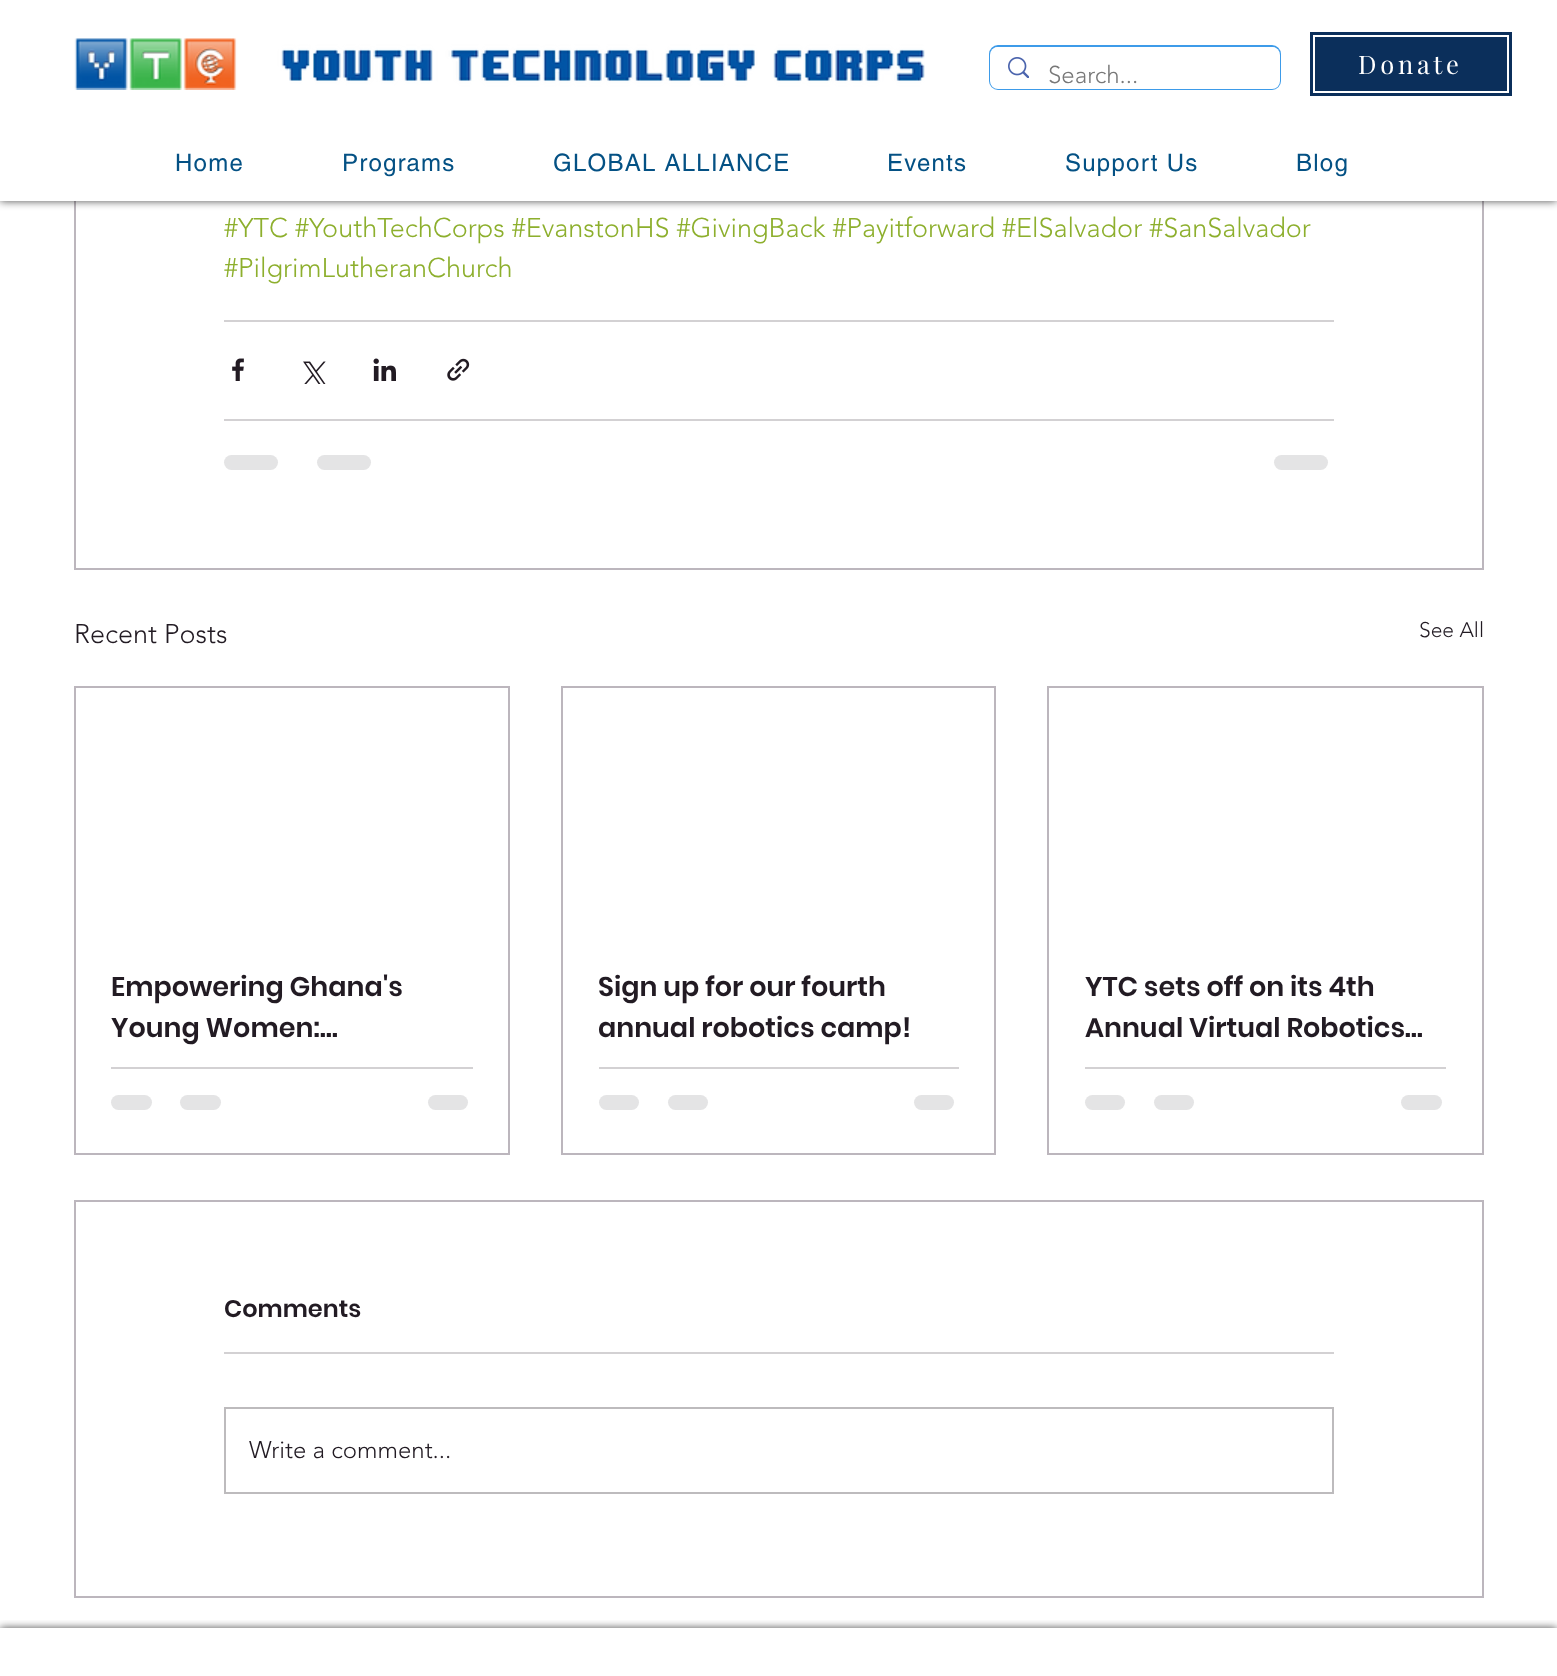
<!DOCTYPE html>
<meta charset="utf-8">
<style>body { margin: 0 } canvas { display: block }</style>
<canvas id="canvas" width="1557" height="1676"></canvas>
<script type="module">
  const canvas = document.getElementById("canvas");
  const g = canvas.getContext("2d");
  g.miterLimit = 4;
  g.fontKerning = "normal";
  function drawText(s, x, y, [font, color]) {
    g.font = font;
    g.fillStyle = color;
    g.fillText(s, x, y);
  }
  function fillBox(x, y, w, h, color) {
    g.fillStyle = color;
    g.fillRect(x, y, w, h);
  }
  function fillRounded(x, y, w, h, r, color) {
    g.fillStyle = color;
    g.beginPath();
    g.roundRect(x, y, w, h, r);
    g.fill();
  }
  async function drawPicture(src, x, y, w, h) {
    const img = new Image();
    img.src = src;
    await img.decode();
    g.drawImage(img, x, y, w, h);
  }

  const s1 = ["300 24px 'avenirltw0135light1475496'", "#787878"];
  const s2 = ["25.5px Playfair Display", "#FFFFFF"];
  const s3 = ["24px helvetica", "#045184"];
  const s4 = ["300 27px 'avenirltw0135light1475496'", "#8DAF2D"];
  const s5 = ["300 27px 'avenirltw0135light1475496'", "#221B23"];
  const s6 = ["300 21px 'avenirltw0135light1475496'", "#221B23"];
  const s7 = ["600 27px Poppins", "#221B23"];
  const s8 = ["600 24px Poppins", "#221B23"];
  const s9 = ["300 24px 'avenirltw0135light1475496'", "#221B23"];

  fillBox(0, 0, 1557, 1676, "#FFFFFF");
  g.strokeStyle = "#BCB6BD";
  g.lineWidth = 2;
  g.strokeRect(75, -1, 1408, 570);
  g.fillStyle = "rgba(0, 0, 0, 0.7)";
  g.filter = "blur(4px)";
  g.beginPath();
  g.rect(0, 0, 1557, 201);
  g.fill();
  g.filter = "none";
  fillBox(0, 0, 1557, 201, "#FFFFFF");
  await drawPicture("pic1.png", 74, 38, 851, 52);
  g.beginPath();
  g.roundRect(990, 46, 290, 43, 8);
  g.strokeStyle = "#3D9BE9";
  g.stroke();
  fillRounded(990, 47, 290, 42, 8, "#FFFFFF");
  await drawPicture("pic2.png", 1008, 57, 21, 21);
  drawText("Search...", 1048, 83, s1);
  fillBox(1310, 32, 202, 64, "#0B2F5B");
  g.strokeStyle = "#FFFFFF";
  g.strokeRect(1314, 36, 194, 56);
  g.letterSpacing = "3.75px";
  drawText("Donate", 1358, 74, s2);
  g.letterSpacing = "1.25px";
  drawText("Home", 175, 171, s3);
  drawText("Programs", 342, 171, s3);
  drawText("GLOBAL ALLIANCE", 553, 171, s3);
  drawText("Events", 887, 171, s3);
  drawText("Support Us", 1065, 171, s3);
  drawText("Blog", 1296, 171, s3);
  g.letterSpacing = "0px";
  drawText("#YTC #YouthTechCorps #EvanstonHS #GivingBack #Payitforward #ElSalvador #SanSalvador", 224, 237, s4);
  drawText("#PilgrimLutheranChurch", 224, 277, s4);
  fillBox(224, 320, 1110, 2, "#D3D1D3");
  await drawPicture("pic3.png", 232, 358, 12, 23);
  await drawPicture("pic4.png", 303, 361, 23, 23);
  await drawPicture("pic5.png", 373, 358, 23, 23);
  await drawPicture("pic6.png", 447, 358, 23, 23);
  fillBox(224, 419, 1110, 2, "#D3D1D3");
  fillRounded(224, 455, 54, 15, 7.5, "#E4E4E5");
  fillRounded(317, 455, 54, 15, 7.5, "#E4E4E5");
  fillRounded(1274, 455, 54, 15, 7.5, "#E4E4E5");
  drawText("Recent Posts", 74, 643, s5);
  drawText("See All", 1419, 637, s6);
  g.strokeStyle = "#BCB6BD";
  g.strokeRect(75, 687, 434, 467);
  drawText("Empowering Ghana's", 111, 996, s7);
  drawText("Young Women:…", 111, 1037, s7);
  fillBox(111, 1067, 362, 2, "#D3D1D3");
  fillRounded(111, 1095, 41, 15, 7.5, "#E4E4E5");
  fillRounded(180, 1095, 41, 15, 7.5, "#E4E4E5");
  fillRounded(428, 1095, 40, 15, 7.5, "#E4E4E5");
  g.strokeRect(562, 687, 433, 467);
  drawText("Sign up for our fourth", 598, 996, s7);
  drawText("annual robotics camp!", 598, 1037, s7);
  fillBox(599, 1067, 360, 2, "#D3D1D3");
  fillRounded(599, 1095, 40, 15, 7.5, "#E4E4E5");
  fillRounded(668, 1095, 40, 15, 7.5, "#E4E4E5");
  fillRounded(914, 1095, 40, 15, 7.5, "#E4E4E5");
  g.strokeRect(1048, 687, 435, 467);
  drawText("YTC sets off on its 4th", 1085, 996, s7);
  drawText("Annual Virtual Robotics…", 1085, 1037, s7);
  fillBox(1085, 1067, 361, 2, "#D3D1D3");
  fillRounded(1085, 1095, 40, 15, 7.5, "#E4E4E5");
  fillRounded(1154, 1095, 40, 15, 7.5, "#E4E4E5");
  fillRounded(1401, 1095, 41, 15, 7.5, "#E4E4E5");
  g.strokeRect(75, 1201, 1408, 396);
  drawText("Comments", 224, 1317, s8);
  fillBox(224, 1352, 1110, 2, "#D3D1D3");
  g.strokeStyle = "#BDBBBD";
  g.strokeRect(225, 1408, 1108, 85);
  drawText("Write a comment...", 249, 1458, s9);
  g.save();
  g.beginPath();
  g.rect(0, 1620, 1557, 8);
  g.clip();
  g.fillStyle = "rgba(0, 0, 0, 0.7)";
  g.filter = "blur(4px)";
  g.beginPath();
  g.rect(0, 1628, 1557, 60);
  g.fill();
  g.filter = "none";
  g.restore();
</script>
